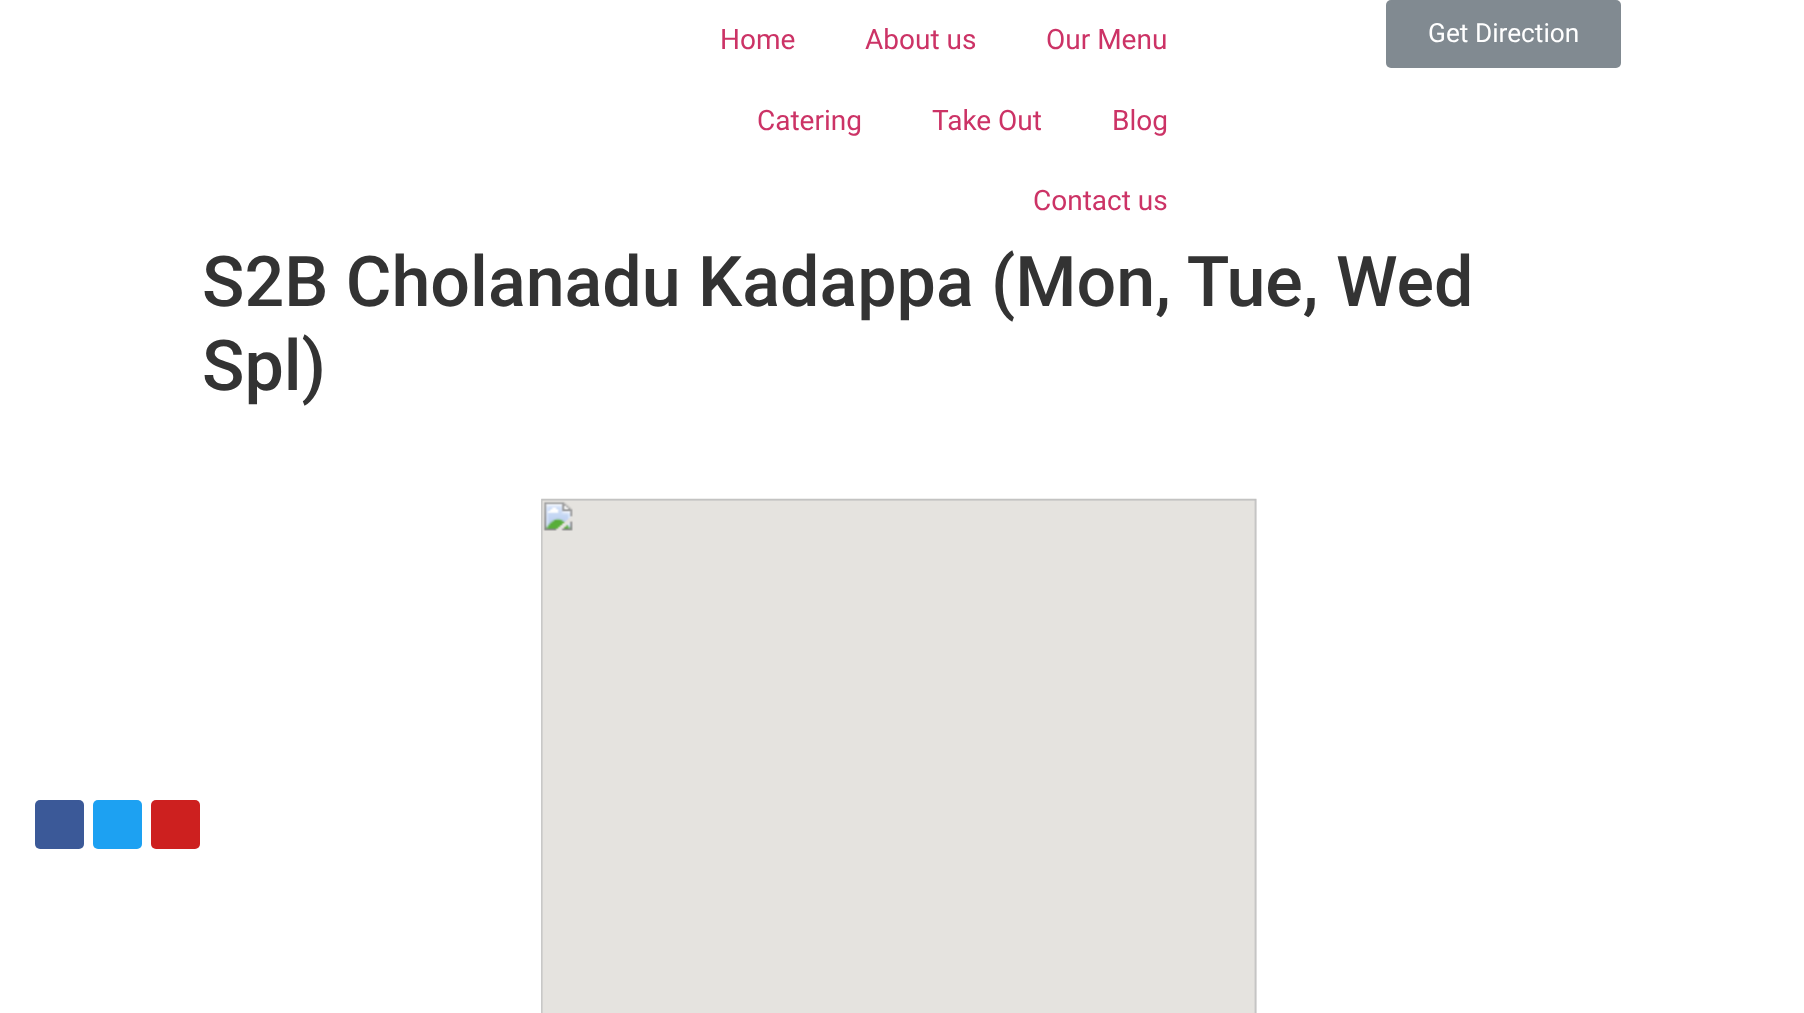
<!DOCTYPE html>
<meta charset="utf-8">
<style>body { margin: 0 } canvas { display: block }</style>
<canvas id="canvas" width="1804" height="1013"></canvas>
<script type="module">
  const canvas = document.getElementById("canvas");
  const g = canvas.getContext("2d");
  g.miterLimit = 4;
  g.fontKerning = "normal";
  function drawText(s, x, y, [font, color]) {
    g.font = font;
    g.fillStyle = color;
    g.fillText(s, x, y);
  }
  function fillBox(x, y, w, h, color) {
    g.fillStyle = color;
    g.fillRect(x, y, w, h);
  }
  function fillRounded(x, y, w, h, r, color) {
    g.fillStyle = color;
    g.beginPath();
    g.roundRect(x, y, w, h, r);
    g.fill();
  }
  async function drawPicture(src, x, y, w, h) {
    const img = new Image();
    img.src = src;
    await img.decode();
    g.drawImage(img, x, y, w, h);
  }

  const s1 = ["28px Roboto", "#CC3366"];
  const s2 = ["26.25px Roboto", "#FFFFFF"];
  const s3 = ["500 70px Roboto", "#333333"];

  fillBox(0, 0, 1804, 1013, "#FFFFFF");
  drawText("Home", 720, 49, s1);
  drawText("About us", 865, 49, s1);
  drawText("Our Menu", 1046, 49, s1);
  drawText("Catering", 757, 130, s1);
  drawText("Take Out", 932, 130, s1);
  drawText("Blog", 1112, 130, s1);
  drawText("Contact us", 1033, 210, s1);
  fillRounded(1386, 0, 235, 68, 5, "#818A91");
  drawText("Get Direction", 1428, 42, s2);
  drawText("S2B Cholanadu Kadappa (Mon, Tue, Wed", 202, 306, s3);
  drawText("Spl)", 202, 390, s3);
  fillRounded(35, 800, 49, 49, 5, "#3B5998");
  fillRounded(93, 800, 49, 49, 5, "#1DA1F2");
  fillRounded(151, 800, 49, 49, 5, "#CD201F");
  await drawPicture("pic1.png", 541, 498, 716, 515);
</script>
